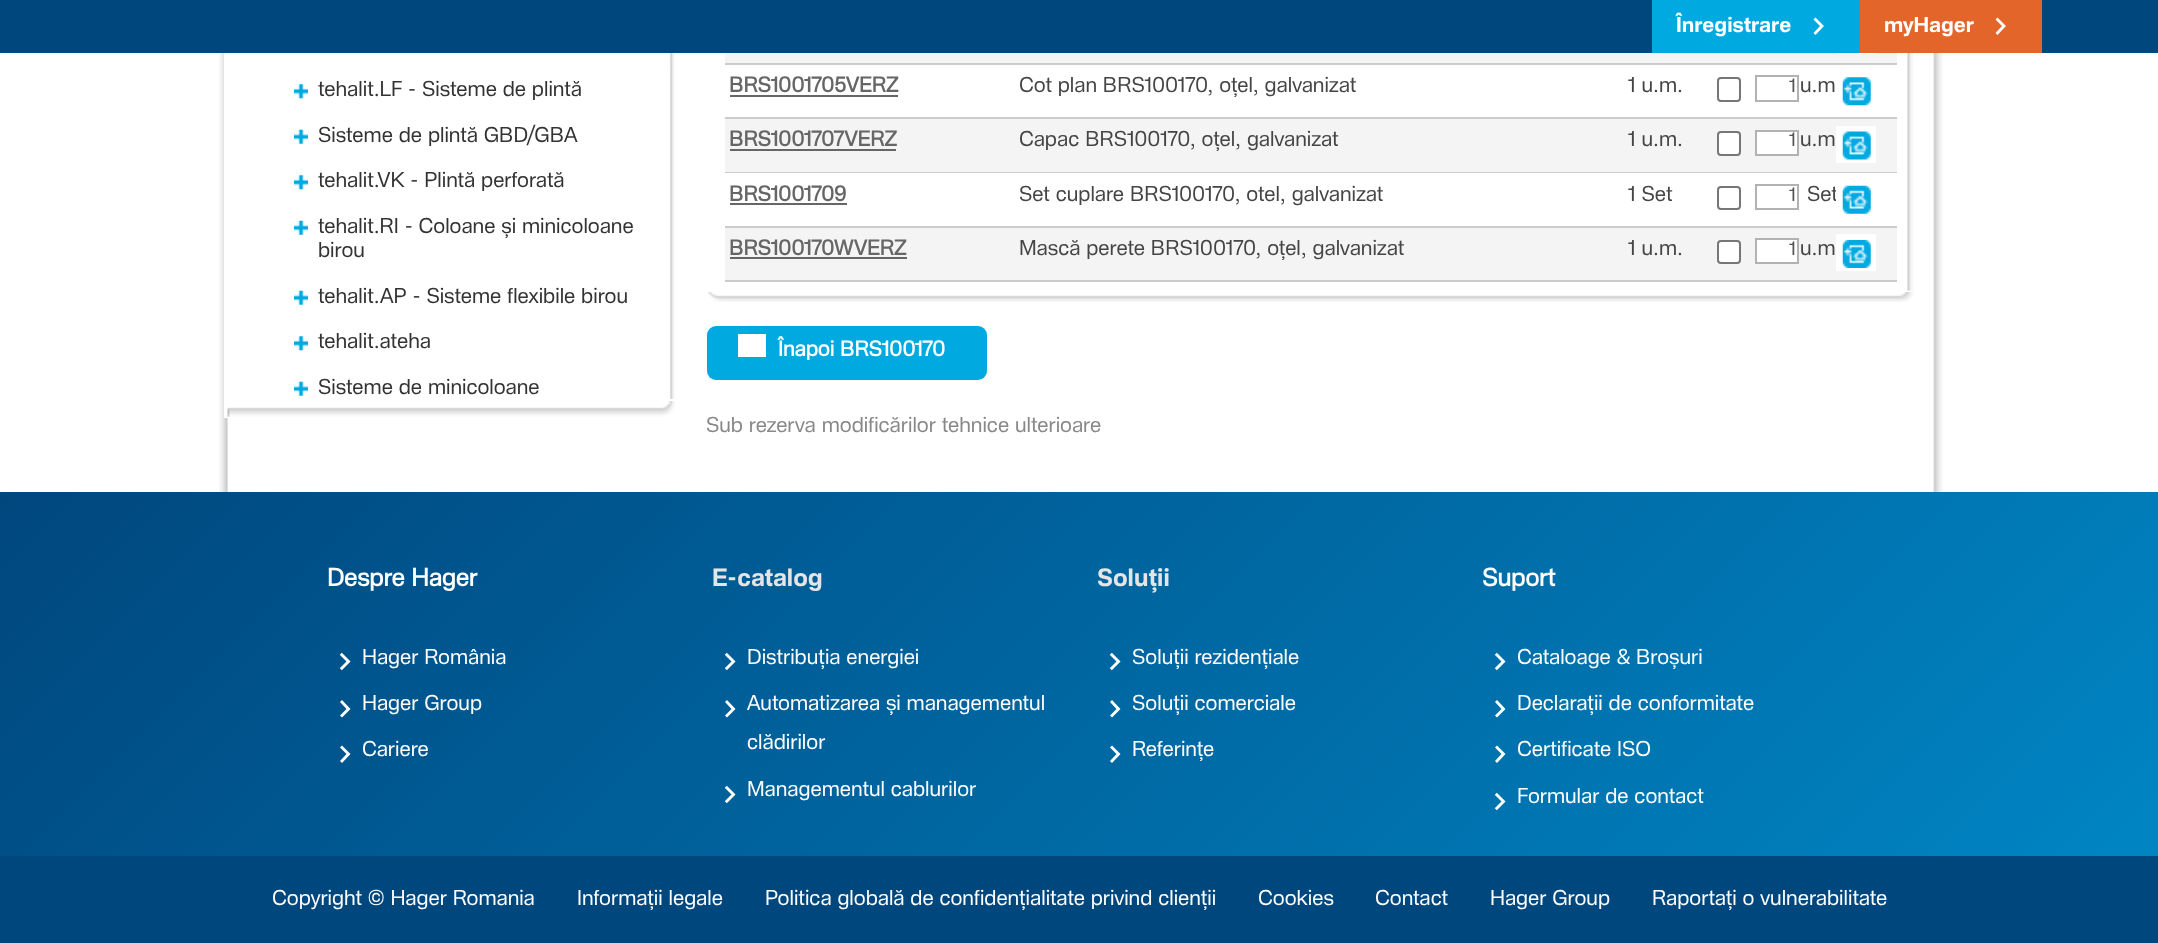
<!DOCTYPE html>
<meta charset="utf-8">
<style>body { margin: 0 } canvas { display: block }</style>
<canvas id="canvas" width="2158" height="943"></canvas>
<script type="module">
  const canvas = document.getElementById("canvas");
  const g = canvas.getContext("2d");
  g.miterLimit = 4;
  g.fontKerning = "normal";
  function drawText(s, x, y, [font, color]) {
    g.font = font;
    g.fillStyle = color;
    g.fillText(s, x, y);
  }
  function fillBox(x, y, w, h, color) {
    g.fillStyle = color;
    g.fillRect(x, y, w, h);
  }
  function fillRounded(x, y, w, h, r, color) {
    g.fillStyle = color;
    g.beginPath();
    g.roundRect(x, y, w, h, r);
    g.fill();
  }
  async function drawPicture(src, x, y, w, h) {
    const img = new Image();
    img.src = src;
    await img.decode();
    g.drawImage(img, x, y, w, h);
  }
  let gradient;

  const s1 = ["bold 21px 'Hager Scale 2'", "#FFFFFF"];
  const s2 = ["21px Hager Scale", "#333333"];
  const s3 = ["bold 21px Hager Scale", "#666666"];
  const s4 = ["21px Hager Scale", "#454545"];
  const s5 = ["19px Hager Scale", "#555555"];
  const s6 = ["bold 21px Hager Scale", "#FFFFFF"];
  const s7 = ["21px Hager Scale", "#888888"];
  const s8 = ["bold 24.5px Hager Scale", "#FFFFFF"];
  const s9 = ["21px Hager Scale", "#FFFFFF"];
  const s10 = ["bold 24.5px 'Hager Scale 2'", "#E5E5E5"];

  fillBox(0, 0, 2158, 943, "#FFFFFF");
  fillBox(0, 0, 2158, 53, "#00477E");
  fillBox(1652, 0, 208, 53, "#00AAE1");
  drawText("Înregistrare", 1676, 32, s1);
  g.beginPath();
  g.moveTo(1815.5, 17.5);
  g.lineTo(1824, 26);
  g.lineTo(1815.5, 35);
  g.lineTo(1813.5, 33);
  g.lineTo(1820, 26);
  g.lineTo(1813.5, 19.5);
  g.closePath();
  g.fill();
  fillBox(1860, 0, 182, 53, "#E46529");
  drawText("myHager", 1884, 32, s1);
  g.beginPath();
  g.moveTo(1997.5, 17.5);
  g.lineTo(2006, 26);
  g.lineTo(1997.5, 35);
  g.lineTo(1995.5, 33);
  g.lineTo(2002, 26);
  g.lineTo(1995.5, 19.5);
  g.closePath();
  g.fill();
  await drawPicture("pic1.png", 219, 53, 1724, 439);
  await drawPicture("pic2.png", 224, 53, 451, 346);
  await drawPicture("pic3.png", 294, 84, 14, 15);
  fillBox(669, 68, 1, 331, "#FFFFFF");
  drawText("tehalit.LF - Sisteme de plintă", 318, 96, s2);
  await drawPicture("pic4.png", 294, 129, 14, 15);
  drawText("Sisteme de plintă GBD/GBA", 318, 142, s2);
  await drawPicture("pic3.png", 294, 175, 14, 15);
  drawText("tehalit.VK - Plintă perforată", 318, 187, s2);
  await drawPicture("pic4.png", 294, 220, 14, 15);
  drawText("tehalit.RI - Coloane și minicoloane", 318, 233, s2);
  drawText("birou", 318, 257, s2);
  await drawPicture("pic4.png", 294, 290, 14, 15);
  drawText("tehalit.AP - Sisteme flexibile birou", 318, 303, s2);
  await drawPicture("pic3.png", 294, 336, 14, 15);
  drawText("tehalit.ateha", 318, 348, s2);
  await drawPicture("pic4.png", 294, 381, 14, 15);
  drawText("Sisteme de minicoloane", 318, 394, s2);
  await drawPicture("pic5.png", 224, 399, 451, 19);
  await drawPicture("pic6.png", 707, 53, 1207, 239);
  await drawPicture("pic7.png", 707, 53, 1206, 238);
  fillBox(725, 53, 1172, 10, "#F4F4F4");
  fillBox(725, 63, 1172, 2, "#CCCCCC");
  await drawPicture("pic8.png", 1836, 53, 40, 1);
  fillBox(725, 117, 1172, 2, "#CCCCCC");
  drawText("BRS1001705VERZ", 729, 92, s3);
  fillBox(730, 95, 168, 2, "#666666");
  drawText("Cot plan BRS100170, oțel, galvanizat", 1019, 92, s4);
  drawText("1 u.m.", 1628, 92, s4);
  g.beginPath();
  g.roundRect(1718, 78, 22, 23, 3);
  g.strokeStyle = "#767676";
  g.lineWidth = 2;
  g.stroke();
  g.strokeStyle = "#B2B2B2";
  g.strokeRect(1756, 76, 42, 25);
  drawText("1", 1789, 92, s5);
  drawText("u.m", 1800, 92, s4);
  await drawPicture("pic9.png", 1837, 77, 34, 29);
  fillBox(725, 119, 1172, 53, "#F4F4F4");
  fillBox(725, 172, 1172, 1, "#CCCCCC");
  drawText("BRS1001707VERZ", 729, 146, s3);
  fillBox(730, 149, 166, 2, "#666666");
  drawText("Capac BRS100170, oțel, galvanizat", 1019, 146, s4);
  drawText("1 u.m.", 1628, 146, s4);
  g.fillStyle = "#FFFFFF";
  g.beginPath();
  g.roundRect(1718, 132, 22, 23, 3);
  g.fill();
  g.strokeStyle = "#767676";
  g.stroke();
  g.beginPath();
  g.rect(1756, 131, 42, 24);
  g.fill();
  g.strokeStyle = "#B2B2B2";
  g.stroke();
  drawText("1", 1789, 146, s5);
  drawText("u.m", 1800, 146, s4);
  await drawPicture("pic10.png", 1836, 126, 40, 37);
  fillBox(725, 226, 1172, 2, "#CCCCCC");
  drawText("BRS1001709", 729, 201, s3);
  fillBox(730, 203, 117, 2, "#666666");
  drawText("Set cuplare BRS100170, otel, galvanizat", 1019, 201, s4);
  drawText("1 Set", 1628, 201, s4);
  g.beginPath();
  g.roundRect(1718, 187, 22, 22, 3);
  g.strokeStyle = "#767676";
  g.stroke();
  g.strokeStyle = "#B2B2B2";
  g.strokeRect(1756, 185, 42, 24);
  drawText("1", 1789, 201, s5);
  drawText("Set", 1807, 201, s4);
  await drawPicture("pic11.png", 1836, 185, 35, 29);
  fillBox(725, 228, 1172, 52, "#F4F4F4");
  fillBox(725, 280, 1172, 2, "#CCCCCC");
  drawText("BRS100170WVERZ", 729, 255, s3);
  fillBox(730, 257, 177, 2, "#666666");
  drawText("Mască perete BRS100170, oțel, galvanizat", 1019, 255, s4);
  drawText("1 u.m.", 1628, 255, s4);
  g.fillStyle = "#FFFFFF";
  g.beginPath();
  g.roundRect(1718, 241, 22, 22, 3);
  g.fill();
  g.strokeStyle = "#767676";
  g.stroke();
  g.beginPath();
  g.rect(1756, 239, 42, 24);
  g.fill();
  g.strokeStyle = "#B2B2B2";
  g.stroke();
  drawText("1", 1789, 255, s5);
  drawText("u.m", 1800, 255, s4);
  await drawPicture("pic12.png", 1836, 234, 40, 37);
  await drawPicture("pic13.png", 707, 292, 1207, 10);
  fillRounded(707, 326, 280, 54, 9, "#00AAE1");
  fillBox(738, 334, 28, 23, "#FFFFFF");
  drawText("Înapoi BRS100170", 778, 356, s6);
  drawText("Sub rezerva modificărilor tehnice ulterioare", 706, 432, s7);
  gradient = g.createLinearGradient(449, 43, 1711, 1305);
  gradient.addColorStop(0, "#00477E");
  gradient.addColorStop(1, "#0085C3");
  g.fillStyle = gradient;
  g.fillRect(0, 492, 2158, 364);
  drawText("Despre Hager", 327, 586, s8);
  await drawPicture("pic14.png", 339, 652, 12, 19);
  drawText("Hager România", 362, 664, s9);
  g.beginPath();
  g.moveTo(342, 700);
  g.lineTo(350.5, 709);
  g.lineTo(342, 717.5);
  g.lineTo(340, 715.5);
  g.lineTo(346.5, 709);
  g.lineTo(340, 702);
  g.closePath();
  g.fill();
  drawText("Hager Group", 362, 710, s9);
  g.beginPath();
  g.moveTo(342, 745.5);
  g.lineTo(350.5, 754);
  g.lineTo(342, 763);
  g.lineTo(340, 761);
  g.lineTo(346.5, 754);
  g.lineTo(340, 747.5);
  g.closePath();
  g.fill();
  drawText("Cariere", 362, 756, s9);
  drawText("E-catalog", 712, 586, s10);
  await drawPicture("pic15.png", 724, 652, 12, 19);
  drawText("Distribuția energiei", 747, 664, s9);
  g.beginPath();
  g.moveTo(727, 700);
  g.lineTo(735.5, 709);
  g.lineTo(727, 717.5);
  g.lineTo(725, 715.5);
  g.lineTo(731.5, 709);
  g.lineTo(725, 702);
  g.closePath();
  g.fill();
  drawText("Automatizarea și managementul", 747, 710, s9);
  drawText("clădirilor", 747, 749, s9);
  await drawPicture("pic16.png", 724, 785, 12, 19);
  drawText("Managementul cablurilor", 747, 796, s9);
  drawText("Soluții", 1097, 586, s10);
  await drawPicture("pic17.png", 1109, 652, 12, 19);
  drawText("Soluții rezidențiale", 1132, 664, s9);
  g.beginPath();
  g.moveTo(1112, 700);
  g.lineTo(1120.5, 709);
  g.lineTo(1112, 717.5);
  g.lineTo(1110, 715.5);
  g.lineTo(1116.5, 709);
  g.lineTo(1110, 702);
  g.closePath();
  g.fill();
  drawText("Soluții comerciale", 1132, 710, s9);
  g.beginPath();
  g.moveTo(1112, 745.5);
  g.lineTo(1120.5, 754);
  g.lineTo(1112, 763);
  g.lineTo(1110, 761);
  g.lineTo(1116.5, 754);
  g.lineTo(1110, 747.5);
  g.closePath();
  g.fill();
  drawText("Referințe", 1132, 756, s9);
  drawText("Suport", 1482, 586, s8);
  await drawPicture("pic18.png", 1494, 652, 12, 19);
  drawText("Cataloage & Broșuri", 1517, 664, s9);
  g.beginPath();
  g.moveTo(1497, 700);
  g.lineTo(1505.5, 709);
  g.lineTo(1497, 717.5);
  g.lineTo(1495, 715.5);
  g.lineTo(1501.5, 709);
  g.lineTo(1495, 702);
  g.closePath();
  g.fill();
  drawText("Declarații de conformitate", 1517, 710, s9);
  g.beginPath();
  g.moveTo(1497, 745.5);
  g.lineTo(1505.5, 754);
  g.lineTo(1497, 763);
  g.lineTo(1495, 761);
  g.lineTo(1501.5, 754);
  g.lineTo(1495, 747.5);
  g.closePath();
  g.fill();
  drawText("Certificate ISO", 1517, 756, s9);
  await drawPicture("pic19.png", 1494, 792, 12, 19);
  drawText("Formular de contact", 1517, 803, s9);
  fillBox(0, 856, 2158, 87, "#00477E");
  drawText("Copyright © Hager Romania", 272, 905, s9);
  drawText("Informații legale", 577, 905, s9);
  drawText("Politica globală de confidențialitate privind clienții", 765, 905, s9);
  drawText("Cookies", 1258, 905, s9);
  drawText("Contact", 1375, 905, s9);
  drawText("Hager Group", 1490, 905, s9);
  drawText("Raportați o vulnerabilitate", 1652, 905, s9);
</script>
